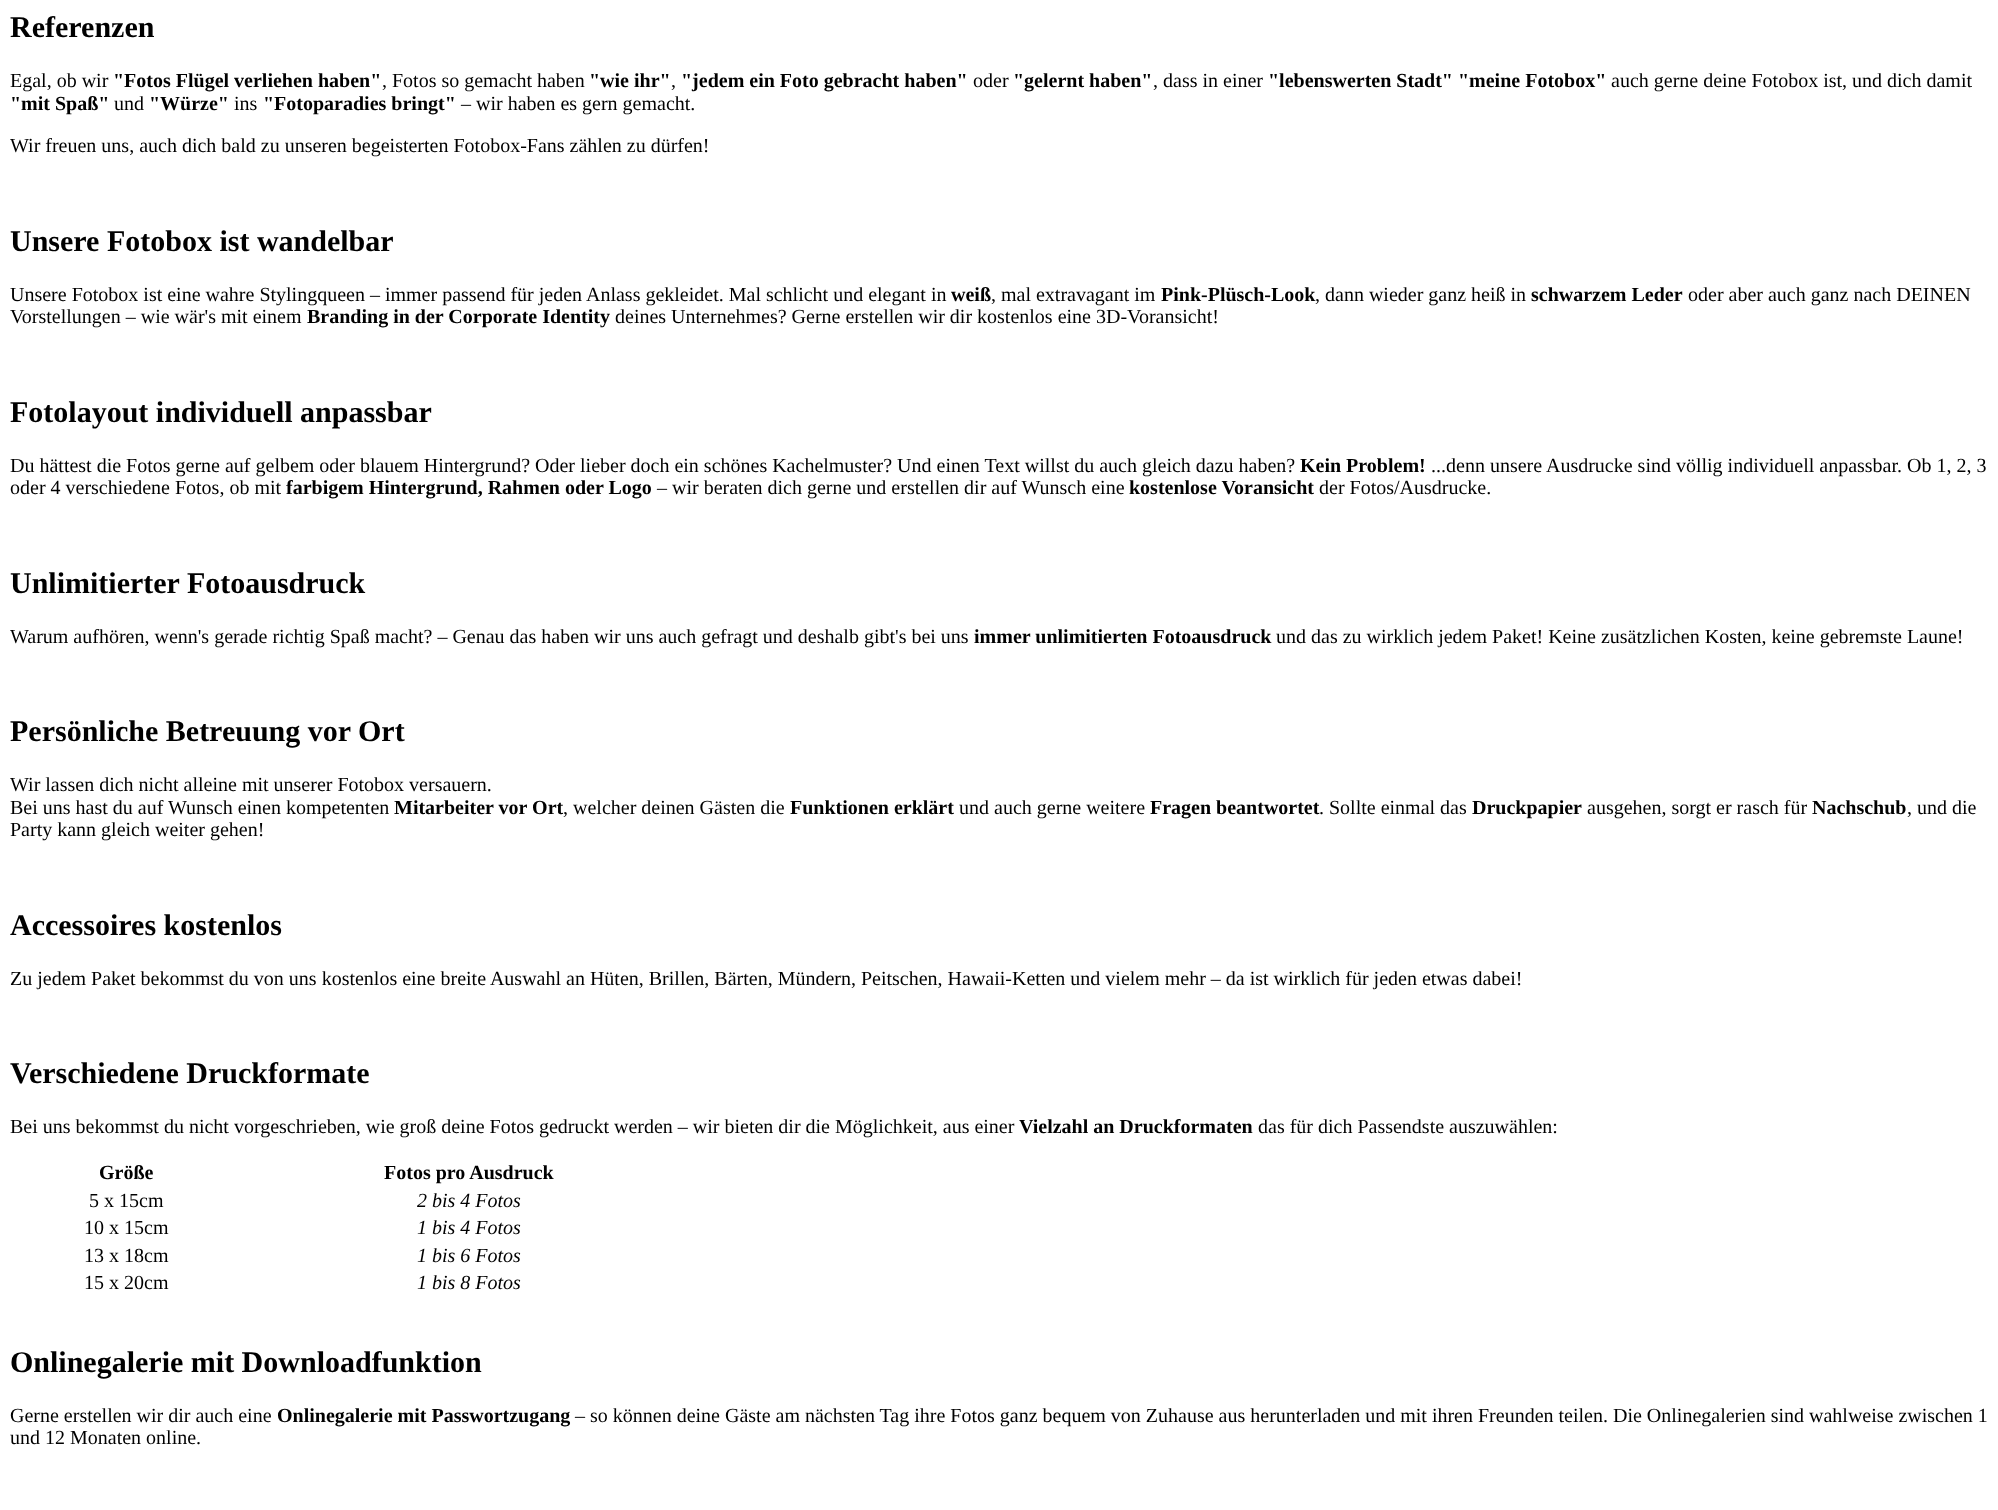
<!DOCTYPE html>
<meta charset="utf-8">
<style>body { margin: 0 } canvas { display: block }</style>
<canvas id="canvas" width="1998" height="1510"></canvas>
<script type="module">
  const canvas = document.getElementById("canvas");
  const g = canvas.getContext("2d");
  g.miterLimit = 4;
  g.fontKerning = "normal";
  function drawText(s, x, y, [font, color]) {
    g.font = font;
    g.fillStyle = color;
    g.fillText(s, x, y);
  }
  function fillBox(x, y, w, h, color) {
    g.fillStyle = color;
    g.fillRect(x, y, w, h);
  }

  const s1 = ["bold 30px Liberation Serif", "#000000"];
  const s2 = ["20px Liberation Serif", "#000000"];
  const s3 = ["bold 20px Liberation Serif", "#000000"];
  const s4 = ["italic 20px Liberation Serif", "#000000"];

  fillBox(0, 0, 1998, 1510, "#FFFFFF");
  drawText("Referenzen", 10, 37, s1);
  drawText("Egal, ob wir", 10, 87, s2);
  drawText("\"Fotos Flügel verliehen haben\"", 113, 87, s3);
  drawText(", Fotos so gemacht haben", 382, 87, s2);
  drawText("\"wie ihr\"", 589, 87, s3);
  drawText(",", 671, 87, s2);
  drawText("\"jedem ein Foto gebracht haben\"", 681, 87, s3);
  drawText("oder", 973, 87, s2);
  drawText("\"gelernt haben\"", 1013, 87, s3);
  drawText(", dass in einer", 1153, 87, s2);
  drawText("\"lebenswerten Stadt\" \"meine Fotobox\"", 1268, 87, s3);
  drawText("auch gerne deine Fotobox ist, und dich damit", 1611, 87, s2);
  drawText("\"mit Spaß\"", 10, 110, s3);
  drawText("und", 114, 110, s2);
  drawText("\"Würze\"", 149, 110, s3);
  drawText("ins", 234, 110, s2);
  drawText("\"Fotoparadies bringt\"", 263, 110, s3);
  drawText("– wir haben es gern gemacht.", 461, 110, s2);
  drawText("Wir freuen uns, auch dich bald zu unseren begeisterten Fotobox-Fans zählen zu dürfen!", 10, 152, s2);
  drawText("Unsere Fotobox ist wandelbar", 10, 251, s1);
  drawText("Unsere Fotobox ist eine wahre Stylingqueen – immer passend für jeden Anlass gekleidet. Mal schlicht und elegant in", 10, 301, s2);
  drawText("weiß", 951, 301, s3);
  drawText(", mal extravagant im", 991, 301, s2);
  drawText("Pink-Plüsch-Look", 1161, 301, s3);
  drawText(", dann wieder ganz heiß in", 1315, 301, s2);
  drawText("schwarzem Leder", 1531, 301, s3);
  drawText("oder aber auch ganz nach DEINEN", 1688, 301, s2);
  drawText("Vorstellungen – wie wär's mit einem", 10, 323, s2);
  drawText("Branding in der Corporate Identity", 307, 323, s3);
  drawText("deines Unternehmes? Gerne erstellen wir dir kostenlos eine 3D-Voransicht!", 615, 323, s2);
  drawText("Fotolayout individuell anpassbar", 10, 422, s1);
  drawText("Du hättest die Fotos gerne auf gelbem oder blauem Hintergrund? Oder lieber doch ein schönes Kachelmuster? Und einen Text willst du auch gleich dazu haben?", 10, 472, s2);
  drawText("Kein Problem!", 1300, 472, s3);
  drawText("...denn unsere Ausdrucke sind völlig individuell anpassbar. Ob 1, 2, 3", 1431, 472, s2);
  drawText("oder 4 verschiedene Fotos, ob mit", 10, 494, s2);
  drawText("farbigem Hintergrund, Rahmen oder Logo", 286, 494, s3);
  drawText("– wir beraten dich gerne und erstellen dir auf Wunsch eine", 657, 494, s2);
  drawText("kostenlose Voransicht", 1129, 494, s3);
  drawText("der Fotos/Ausdrucke.", 1319, 494, s2);
  drawText("Unlimitierter Fotoausdruck", 10, 593, s1);
  drawText("Warum aufhören, wenn's gerade richtig Spaß macht? – Genau das haben wir uns auch gefragt und deshalb gibt's bei uns", 10, 643, s2);
  drawText("immer unlimitierten Fotoausdruck", 974, 643, s3);
  drawText("und das zu wirklich jedem Paket! Keine zusätzlichen Kosten, keine gebremste Laune!", 1276, 643, s2);
  drawText("Persönliche Betreuung vor Ort", 10, 741, s1);
  drawText("Wir lassen dich nicht alleine mit unserer Fotobox versauern.", 10, 791, s2);
  drawText("Bei uns hast du auf Wunsch einen kompetenten", 10, 814, s2);
  drawText("Mitarbeiter vor Ort", 394, 814, s3);
  drawText(", welcher deinen Gästen die", 563, 814, s2);
  drawText("Funktionen erklärt", 790, 814, s3);
  drawText("und auch gerne weitere", 959, 814, s2);
  drawText("Fragen beantwortet", 1150, 814, s3);
  drawText(". Sollte einmal das", 1319, 814, s2);
  drawText("Druckpapier", 1472, 814, s3);
  drawText("ausgehen, sorgt er rasch für", 1587, 814, s2);
  drawText("Nachschub", 1812, 814, s3);
  drawText(", und die", 1907, 814, s2);
  drawText("Party kann gleich weiter gehen!", 10, 836, s2);
  drawText("Accessoires kostenlos", 10, 935, s1);
  drawText("Zu jedem Paket bekommst du von uns kostenlos eine breite Auswahl an Hüten, Brillen, Bärten, Mündern, Peitschen, Hawaii-Ketten und vielem mehr – da ist wirklich für jeden etwas dabei!", 10, 985, s2);
  drawText("Verschiedene Druckformate", 10, 1083, s1);
  drawText("Bei uns bekommst du nicht vorgeschrieben, wie groß deine Fotos gedruckt werden – wir bieten dir die Möglichkeit, aus einer", 10, 1133, s2);
  drawText("Vielzahl an Druckformaten", 1019, 1133, s3);
  drawText("das für dich Passendste auszuwählen:", 1258, 1133, s2);
  drawText("Größe", 99, 1179, s3);
  drawText("Fotos pro Ausdruck", 384, 1179, s3);
  drawText("5 x 15cm", 89, 1207, s2);
  drawText("2 bis 4 Fotos", 417, 1207, s4);
  drawText("10 x 15cm", 84, 1234, s2);
  drawText("1 bis 4 Fotos", 417, 1234, s4);
  drawText("13 x 18cm", 84, 1262, s2);
  drawText("1 bis 6 Fotos", 417, 1262, s4);
  drawText("15 x 20cm", 84, 1289, s2);
  drawText("1 bis 8 Fotos", 417, 1289, s4);
  drawText("Onlinegalerie mit Downloadfunktion", 10, 1372, s1);
  drawText("Gerne erstellen wir dir auch eine", 10, 1422, s2);
  drawText("Onlinegalerie mit Passwortzugang", 277, 1422, s3);
  drawText("– so können deine Gäste am nächsten Tag ihre Fotos ganz bequem von Zuhause aus herunterladen und mit ihren Freunden teilen. Die Onlinegalerien sind wahlweise zwischen 1", 575, 1422, s2);
  drawText("und 12 Monaten online.", 10, 1444, s2);
</script>
